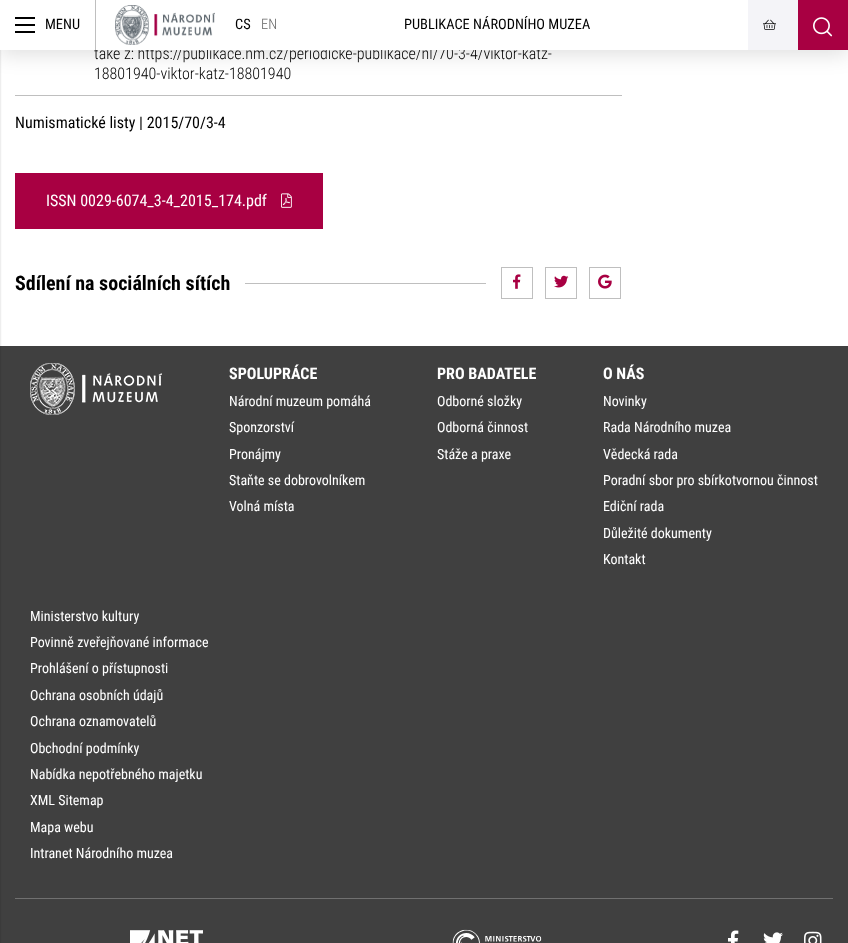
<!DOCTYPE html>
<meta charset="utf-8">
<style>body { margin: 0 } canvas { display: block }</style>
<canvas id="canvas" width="848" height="943"></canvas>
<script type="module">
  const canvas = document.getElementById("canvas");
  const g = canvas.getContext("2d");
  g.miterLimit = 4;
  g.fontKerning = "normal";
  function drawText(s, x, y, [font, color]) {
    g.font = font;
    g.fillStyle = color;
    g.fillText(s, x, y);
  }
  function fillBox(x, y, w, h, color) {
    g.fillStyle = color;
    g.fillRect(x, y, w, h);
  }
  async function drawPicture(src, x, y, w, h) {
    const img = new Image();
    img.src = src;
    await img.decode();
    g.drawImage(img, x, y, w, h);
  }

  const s1 = ["300 16px Roboto Condensed", "#000000"];
  const s2 = ["14.4px Roboto Condensed", "#000000"];
  const s3 = ["300 14.4px Roboto Condensed", "#666666"];
  const s4 = ["16px Roboto Condensed", "#000000"];
  const s5 = ["16px Roboto Condensed", "#FFFFFF"];
  const s6 = ["bold 20px Roboto Condensed", "#000000"];
  const s7 = ["bold 16px Roboto Condensed", "#FFFFFF"];
  const s8 = ["14px Roboto Condensed", "#FFFFFF"];

  fillBox(0, 0, 848, 943, "#FFFFFF");
  g.fillStyle = "rgba(0, 0, 0, 0.12)";
  g.filter = "blur(10px)";
  g.beginPath();
  g.rect(0, 5, 848, 50);
  g.fill();
  g.filter = "none";
  drawText("také z: https://publikace.nm.cz/periodicke-publikace/nl/70-3-4/viktor-katz-", 94, 59, s1);
  fillBox(96, 0, 652, 50, "#FFFFFF");
  fillBox(0, 346, 848, 597, "#404040");
  g.fillStyle = "rgba(0, 0, 0, 0.2)";
  g.filter = "blur(1px)";
  g.beginPath();
  g.rect(-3, 2, 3, 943);
  g.fill();
  g.filter = "none";
  fillBox(0, 0, 95, 50, "#FFFFFF");
  fillBox(95, 0, 1, 50, "#BFBFBF");
  fillBox(15, 17, 20, 2, "#000000");
  fillBox(15, 24, 20, 2, "#000000");
  fillBox(15, 31, 20, 2, "#000000");
  drawText("MENU", 45, 29, s2);
  await drawPicture("pic1.png", 115, 5, 100, 40);
  drawText("CS", 235, 29, s2);
  drawText("EN", 261, 29, s3);
  drawText("PUBLIKACE NÁRODNÍHO MUZEA", 404, 29, s2);
  fillBox(748, 0, 50, 50, "#F4F4F8");
  await drawPicture("pic2.png", 763, 19, 13, 11);
  fillBox(798, 0, 50, 50, "#A80042");
  await drawPicture("pic3.png", 813, 17, 20, 20);
  fillBox(15, 95, 607, 1, "#BFBFBF");
  drawText("18801940-viktor-katz-18801940", 94, 79, s1);
  drawText("Numismatické listy | 2015/70/3-4", 15, 128, s4);
  fillBox(15, 173, 308, 56, "#A80042");
  drawText("ISSN 0029-6074_3-4_2015_174.pdf", 46, 206, s5);
  await drawPicture("pic4.png", 281, 193, 11, 15);
  drawText("Sdílení na sociálních sítích", 15, 290, s6);
  fillBox(245, 283, 241, 1, "#BFBFBF");
  g.strokeStyle = "#BFBFBF";
  g.strokeRect(501.5, 267.5, 31, 31);
  await drawPicture("pic5.png", 513, 274, 8, 15);
  g.strokeRect(545.5, 267.5, 31, 31);
  await drawPicture("pic6.png", 554, 275, 15, 13);
  g.strokeRect(589.5, 267.5, 31, 31);
  await drawPicture("pic7.png", 598, 274, 14, 15);
  await drawPicture("pic8.png", 30, 363, 132, 52);
  drawText("SPOLUPRÁCE", 229, 379, s7);
  drawText("Národní muzeum pomáhá", 229, 406, s8);
  drawText("Sponzorství", 229, 432, s8);
  drawText("Pronájmy", 229, 459, s8);
  drawText("Staňte se dobrovolníkem", 229, 485, s8);
  drawText("Volná místa", 229, 511, s8);
  drawText("PRO BADATELE", 437, 379, s7);
  drawText("Odborné složky", 437, 406, s8);
  drawText("Odborná činnost", 437, 432, s8);
  drawText("Stáže a praxe", 437, 459, s8);
  drawText("O NÁS", 603, 379, s7);
  drawText("Novinky", 603, 406, s8);
  drawText("Rada Národního muzea", 603, 432, s8);
  drawText("Vědecká rada", 603, 459, s8);
  drawText("Poradní sbor pro sbírkotvornou činnost", 603, 485, s8);
  drawText("Ediční rada", 603, 511, s8);
  drawText("Důležité dokumenty", 603, 538, s8);
  drawText("Kontakt", 603, 564, s8);
  drawText("Ministerstvo kultury", 30, 621, s8);
  drawText("Povinně zveřejňované informace", 30, 647, s8);
  drawText("Prohlášení o přístupnosti", 30, 673, s8);
  drawText("Ochrana osobních údajů", 30, 700, s8);
  drawText("Ochrana oznamovatelů", 30, 726, s8);
  drawText("Obchodní podmínky", 30, 753, s8);
  drawText("Nabídka nepotřebného majetku", 30, 779, s8);
  drawText("XML Sitemap", 30, 805, s8);
  drawText("Mapa webu", 30, 832, s8);
  drawText("Intranet Národního muzea", 30, 858, s8);
  fillBox(15, 898, 818, 1, "#707070");
  await drawPicture("pic9.png", 130, 930, 73, 13);
  await drawPicture("pic10.png", 452, 929, 90, 14);
  await drawPicture("pic11.png", 728, 930, 11, 13);
  await drawPicture("pic12.png", 763, 932, 20, 11);
  await drawPicture("pic13.png", 804, 931, 18, 12);
</script>
